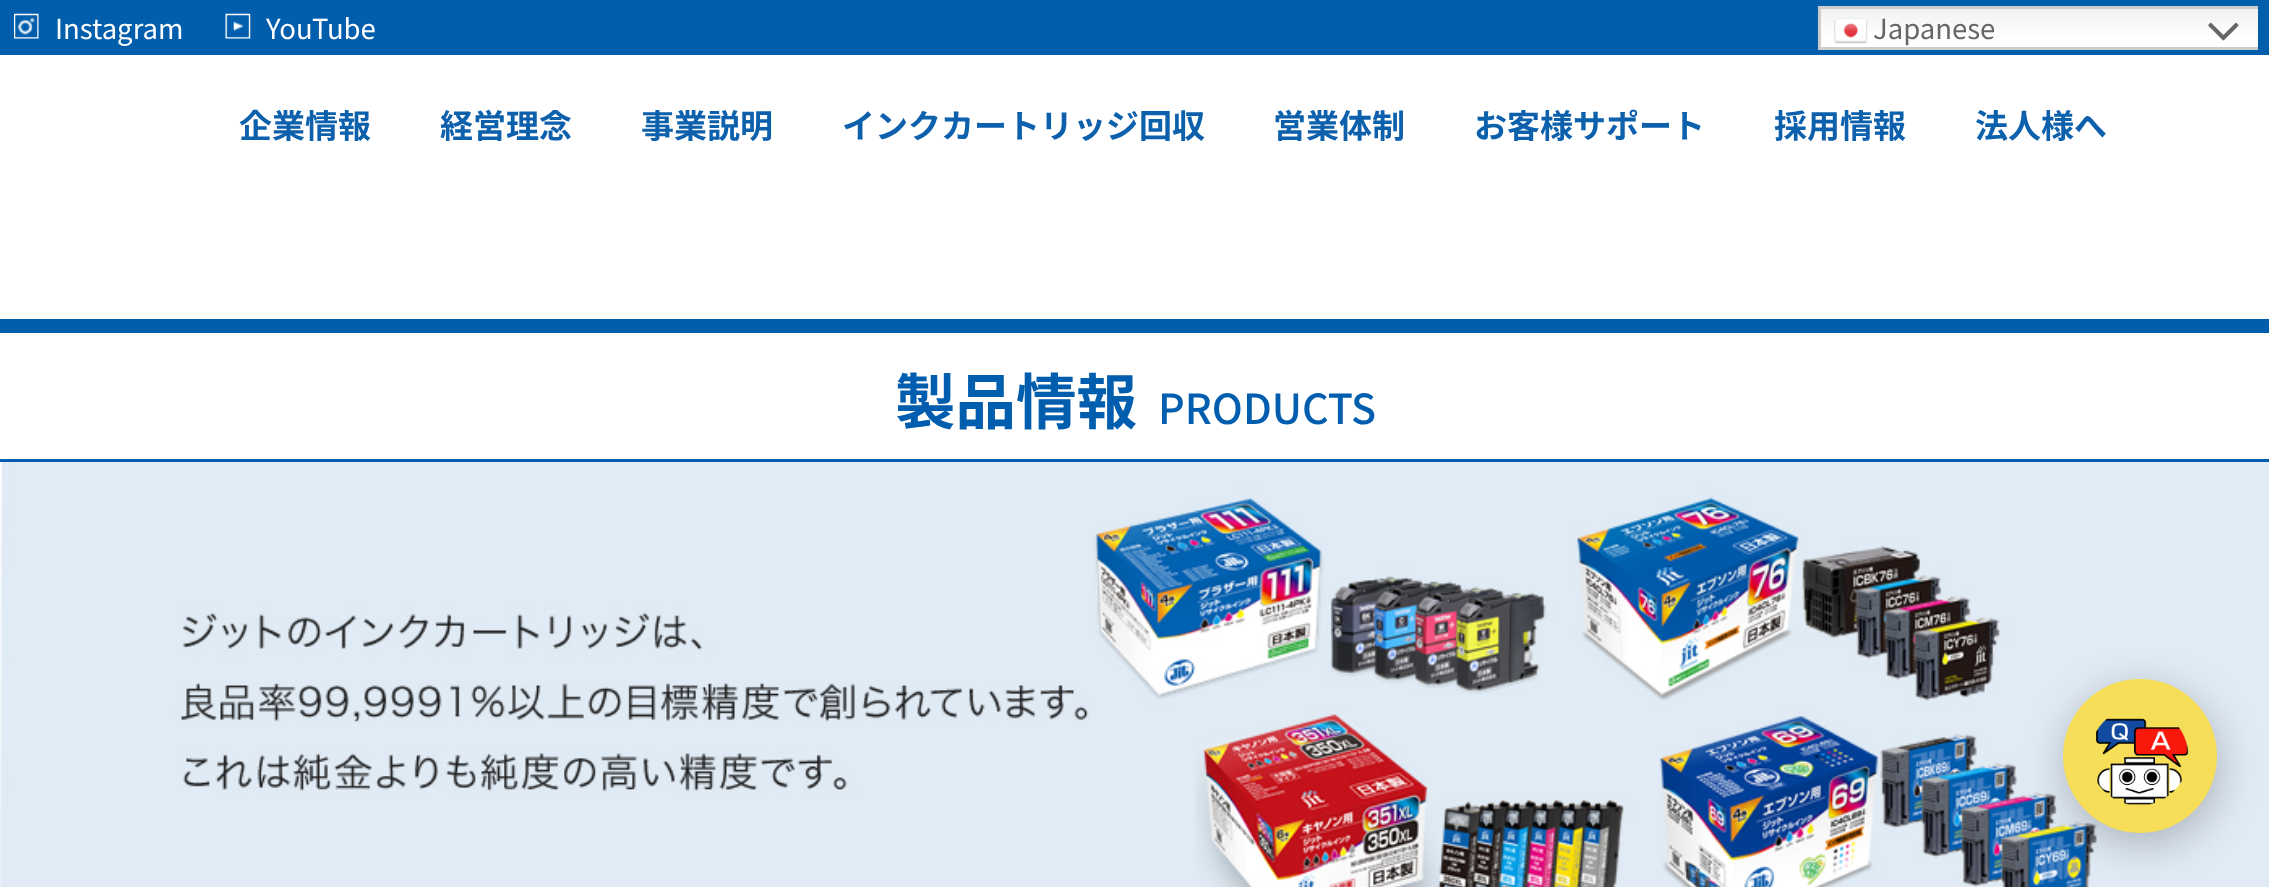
<!DOCTYPE html>
<meta charset="utf-8">
<style>body { margin: 0 } canvas { display: block }</style>
<canvas id="canvas" width="2269" height="887"></canvas>
<script type="module">
  const canvas = document.getElementById("canvas");
  const g = canvas.getContext("2d");
  g.miterLimit = 4;
  g.fontKerning = "normal";
  function drawText(s, x, y, [font, color]) {
    g.font = font;
    g.fillStyle = color;
    g.fillText(s, x, y);
  }
  function fillBox(x, y, w, h, color) {
    g.fillStyle = color;
    g.fillRect(x, y, w, h);
  }
  async function drawPicture(src, x, y, w, h) {
    const img = new Image();
    img.src = src;
    await img.decode();
    g.drawImage(img, x, y, w, h);
  }
  let gradient;

  const s1 = ["27.5px Noto Sans JP", "#FFFFFF"];
  const s2 = ["27.5px Noto Sans JP", "#666666"];
  const s3 = ["bold 33px Noto Sans JP", "#0D60AC"];
  const s4 = ["bold 60.5px Noto Sans JP", "#015EAE"];
  const s5 = ["500 41.25px Noto Sans JP", "#015EAE"];

  fillBox(0, 0, 2269, 887, "#FFFFFF");
  fillBox(0, 319, 2269, 11, "#005EAE");
  fillBox(0, 0, 2269, 55, "#005EAD");
  await drawPicture("pic1.png", 14, 13, 25, 26);
  drawText("Instagram", 55, 39, s1);
  await drawPicture("pic2.png", 225, 13, 26, 26);
  drawText("YouTube", 266, 39, s1);
  gradient = g.createLinearGradient(2038, 5.5, 2038, 50);
  gradient.addColorStop(0, "#EFEFEF");
  gradient.addColorStop(0.7, "#FFFFFF");
  g.fillStyle = gradient;
  g.fillRect(1821, 9, 437, 38);
  g.save();
  g.beginPath();
  g.rect(1818, 6, 440, 44);
  g.clip();
  g.strokeStyle = "#CCCCCC";
  g.lineWidth = 3;
  g.strokeRect(1819.5, 7.5, 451, 41);
  g.restore();
  await drawPicture("pic3.png", 1834, 18, 34, 26);
  drawText("Japanese", 1873, 39, s2);
  await drawPicture("pic4.png", 2208, 22, 31, 19);
  drawText("企業情報", 239, 138, s3);
  drawText("経営理念", 440, 138, s3);
  drawText("事業説明", 641, 138, s3);
  drawText("インクカートリッジ回収", 842, 138, s3);
  drawText("営業体制", 1273, 138, s3);
  drawText("お客様サポート", 1474, 138, s3);
  drawText("採用情報", 1774, 138, s3);
  drawText("法人様へ", 1975, 138, s3);
  fillBox(0, 330, 2269, 3, "#015EAE");
  fillBox(0, 459, 2269, 3, "#015EAE");
  drawText("製品情報", 895, 424, s4);
  drawText("PRODUCTS", 1158, 424, s5);
  await drawPicture("pic5.png", 0, 462, 2269, 425);
  g.fillStyle = "rgba(0, 0, 0, 0.24)";
  g.filter = "blur(20.5px)";
  g.beginPath();
  g.roundRect(2065, 690, 154, 154, 77);
  g.fill();
  g.filter = "none";
  g.fillStyle = "#F6DE58";
  g.beginPath();
  g.arc(2140, 756, 77, 0, Math.PI * 2);
  g.fill();
  await drawPicture("pic6.png", 2096, 718, 93, 87);
</script>
